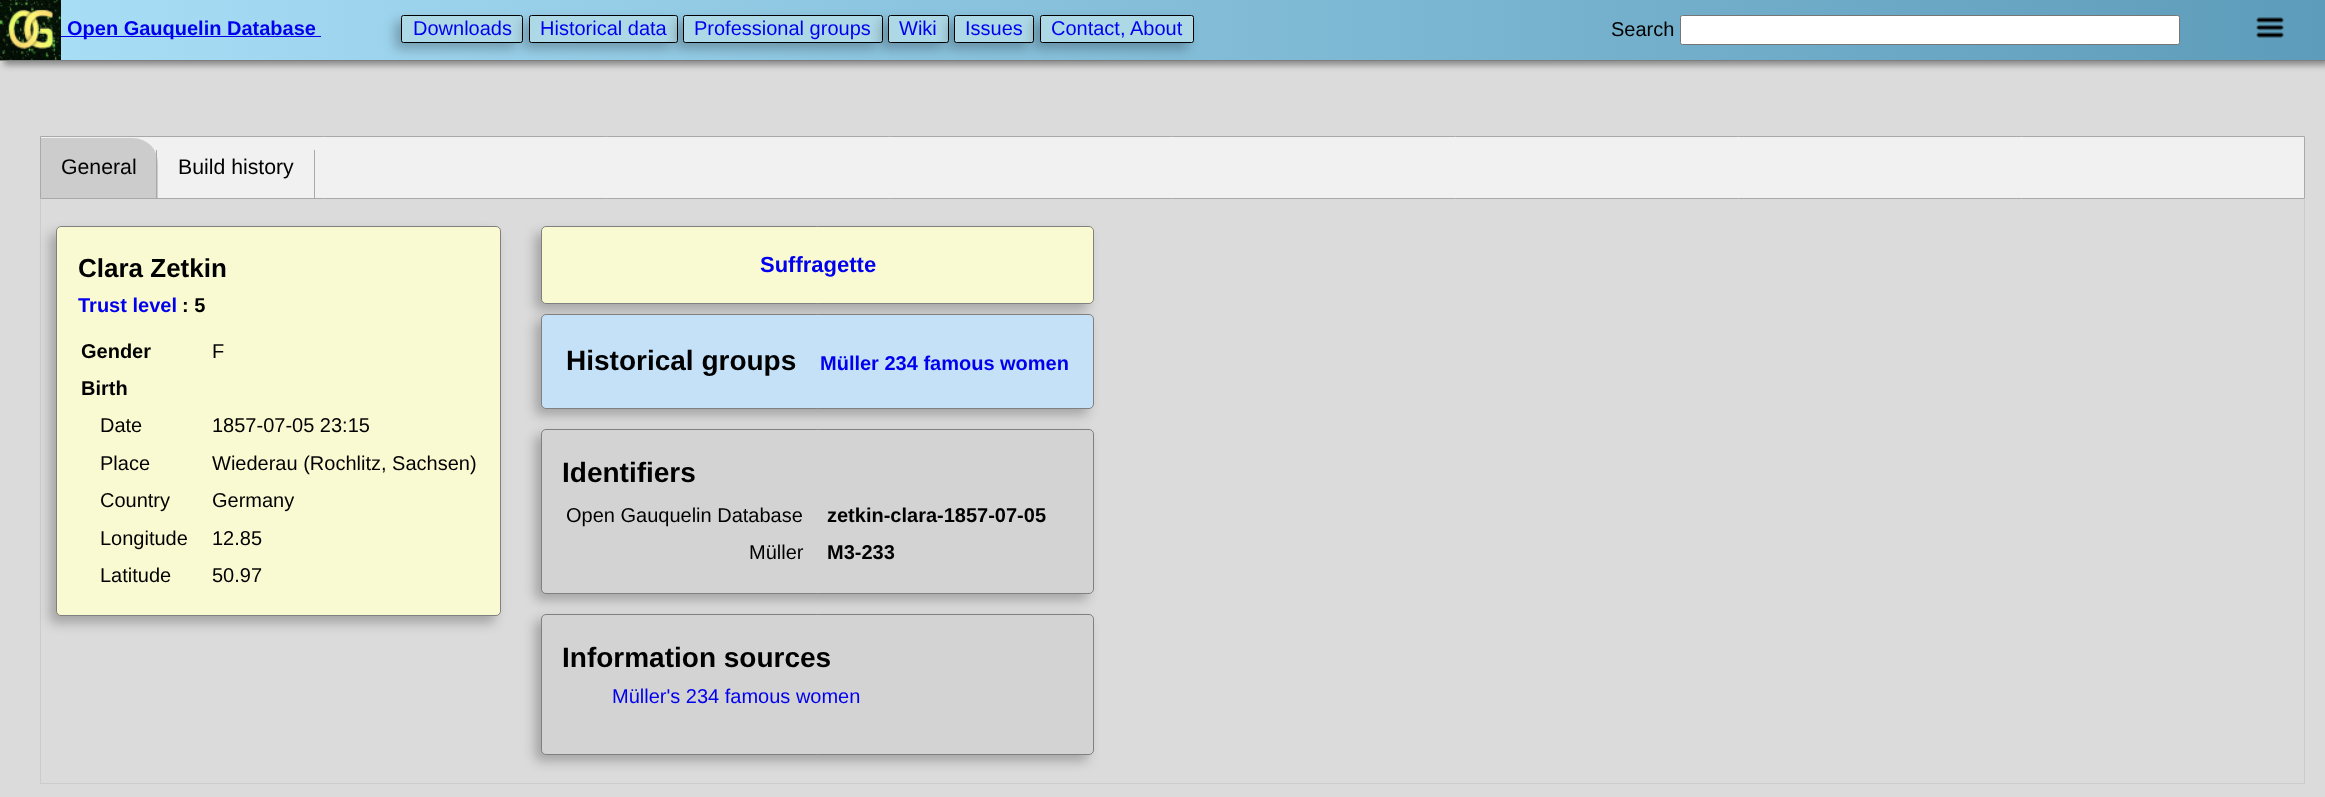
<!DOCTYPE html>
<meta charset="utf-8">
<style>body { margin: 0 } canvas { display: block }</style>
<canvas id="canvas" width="2325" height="797"></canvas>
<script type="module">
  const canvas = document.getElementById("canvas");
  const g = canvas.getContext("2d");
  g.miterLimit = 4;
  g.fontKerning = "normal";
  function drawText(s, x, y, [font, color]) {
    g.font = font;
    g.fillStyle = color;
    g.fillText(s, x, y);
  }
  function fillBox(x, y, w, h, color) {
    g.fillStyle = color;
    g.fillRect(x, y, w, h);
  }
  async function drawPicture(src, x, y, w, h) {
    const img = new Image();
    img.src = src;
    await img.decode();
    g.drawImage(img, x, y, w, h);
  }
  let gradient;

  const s1 = ["bold 20px Liberation Sans", "#0000EE"];
  const s2 = ["20px Liberation Sans", "#0000EE"];
  const s3 = ["20px Liberation Sans", "#000000"];
  const s4 = ["21.25px Liberation Sans", "#000000"];
  const s5 = ["bold 26px Liberation Sans", "#000000"];
  const s6 = ["bold 20px Liberation Sans", "#000000"];
  const s7 = ["bold 22px Liberation Sans", "#0000EE"];
  const s8 = ["bold 28px Liberation Sans", "#000000"];

  fillBox(0, 0, 2325, 797, "#DBDBDB");
  g.fillStyle = "#888888";
  g.filter = "blur(3px)";
  g.beginPath();
  g.rect(4, 4, 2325, 61);
  g.fill();
  g.filter = "none";
  gradient = g.createLinearGradient(2325, 30, 0, 30);
  gradient.addColorStop(0, "#5D9CBA");
  gradient.addColorStop(1, "#AADFF7");
  g.fillStyle = gradient;
  g.fillRect(61, 0, 2264, 60);
  fillBox(0, 60, 2325, 1, "#808080");
  await drawPicture("pic1.png", 0, 0, 61, 60);
  fillBox(61, 36, 260, 1, "#0000EE");
  drawText("Open Gauquelin Database", 67, 35, s1);
  g.fillStyle = "rgba(0, 0, 0, 0.25)";
  g.filter = "blur(6px)";
  g.beginPath();
  g.roundRect(395, 21, 121, 28, 2.5);
  g.fill();
  g.filter = "none";
  g.fillStyle = "#ADD8E6";
  g.beginPath();
  g.roundRect(401.5, 15.5, 121, 27, 2);
  g.fill();
  g.strokeStyle = "#000000";
  g.stroke();
  drawText("Downloads", 413, 35, s2);
  g.fillStyle = "rgba(0, 0, 0, 0.25)";
  g.filter = "blur(6px)";
  g.beginPath();
  g.roundRect(523, 21, 148, 28, 2.5);
  g.fill();
  g.filter = "none";
  g.fillStyle = "#ADD8E6";
  g.beginPath();
  g.roundRect(529.5, 15.5, 148, 27, 2);
  g.fill();
  g.stroke();
  drawText("Historical data", 540, 35, s2);
  g.fillStyle = "rgba(0, 0, 0, 0.25)";
  g.filter = "blur(6px)";
  g.beginPath();
  g.roundRect(676, 21, 200, 28, 2.5);
  g.fill();
  g.filter = "none";
  g.fillStyle = "#ADD8E6";
  g.beginPath();
  g.roundRect(683.5, 15.5, 199, 27, 2);
  g.fill();
  g.stroke();
  drawText("Professional groups", 694, 35, s2);
  g.fillStyle = "rgba(0, 0, 0, 0.25)";
  g.filter = "blur(6px)";
  g.beginPath();
  g.roundRect(881, 21, 62, 28, 2.5);
  g.fill();
  g.filter = "none";
  g.fillStyle = "#ADD8E6";
  g.beginPath();
  g.roundRect(888.5, 15.5, 60, 27, 2);
  g.fill();
  g.stroke();
  drawText("Wiki", 899, 35, s2);
  g.fillStyle = "rgba(0, 0, 0, 0.25)";
  g.filter = "blur(6px)";
  g.beginPath();
  g.roundRect(948, 21, 80, 28, 2.5);
  g.fill();
  g.filter = "none";
  g.fillStyle = "#ADD8E6";
  g.beginPath();
  g.roundRect(954.5, 15.5, 79, 27, 2);
  g.fill();
  g.stroke();
  drawText("Issues", 965, 35, s2);
  g.fillStyle = "rgba(0, 0, 0, 0.25)";
  g.filter = "blur(6px)";
  g.beginPath();
  g.roundRect(1034, 21, 154, 28, 2.5);
  g.fill();
  g.filter = "none";
  g.fillStyle = "#ADD8E6";
  g.beginPath();
  g.roundRect(1040.5, 15.5, 153, 27, 2);
  g.fill();
  g.stroke();
  drawText("Contact, About", 1051, 35, s2);
  drawText("Search", 1611, 36, s3);
  g.fillStyle = "#FFFFFF";
  g.beginPath();
  g.roundRect(1680.5, 15.5, 499, 29, 2);
  g.fill();
  g.strokeStyle = "#767676";
  g.stroke();
  await drawPicture("pic2.png", 2256, 17, 28, 21);
  g.fillStyle = "#F1F1F1";
  g.beginPath();
  g.rect(40.5, 136.5, 2264, 62);
  g.fill();
  g.strokeStyle = "#A9A9A9";
  g.stroke();
  g.fillStyle = "#CCCCCC";
  g.beginPath();
  g.roundRect(41, 138, 117, 60, [0, 25, 0, 0]);
  g.fill();
  fillBox(156, 150, 1, 48, "#A9A9A9");
  drawText("General", 61, 174, s4);
  fillBox(314, 150, 1, 48, "#A9A9A9");
  drawText("Build history", 178, 174, s4);
  fillBox(2304, 199, 1, 585, "#CCCCCC");
  fillBox(40, 783, 2265, 1, "#CCCCCC");
  fillBox(40, 199, 1, 585, "#CCCCCC");
  g.fillStyle = "rgba(0, 0, 0, 0.25)";
  g.filter = "blur(6px)";
  g.beginPath();
  g.roundRect(50, 233, 445, 390, 5);
  g.fill();
  g.filter = "none";
  g.fillStyle = "#FAFAD2";
  g.beginPath();
  g.roundRect(56.5, 226.5, 444, 389, 4.5);
  g.fill();
  g.strokeStyle = "#808080";
  g.stroke();
  drawText("Clara Zetkin", 78, 277, s5);
  drawText("Trust level", 78, 312, s1);
  drawText(": 5", 182, 312, s6);
  drawText("Gender", 81, 358, s6);
  drawText("F", 212, 358, s3);
  drawText("Birth", 81, 395, s6);
  drawText("Date", 100, 432, s3);
  drawText("1857-07-05 23:15", 212, 432, s3);
  drawText("Place", 100, 470, s3);
  drawText("Wiederau (Rochlitz, Sachsen)", 212, 470, s3);
  drawText("Country", 100, 507, s3);
  drawText("Germany", 212, 507, s3);
  drawText("Longitude", 100, 545, s3);
  drawText("12.85", 212, 545, s3);
  drawText("Latitude", 100, 582, s3);
  drawText("50.97", 212, 582, s3);
  g.fillStyle = "rgba(0, 0, 0, 0.25)";
  g.filter = "blur(6px)";
  g.beginPath();
  g.roundRect(535, 233, 553, 77, 5);
  g.fill();
  g.filter = "none";
  g.fillStyle = "#FAFAD2";
  g.beginPath();
  g.roundRect(541.5, 226.5, 552, 77, 4.5);
  g.fill();
  g.stroke();
  drawText("Suffragette", 760, 272, s7);
  g.fillStyle = "rgba(0, 0, 0, 0.25)";
  g.filter = "blur(6px)";
  g.beginPath();
  g.roundRect(535, 320, 553, 95, 5);
  g.fill();
  g.filter = "none";
  g.fillStyle = "#C5E1F7";
  g.beginPath();
  g.roundRect(541.5, 314.5, 552, 94, 4.5);
  g.fill();
  g.stroke();
  drawText("Historical groups", 566, 370, s8);
  drawText("Müller 234 famous women", 820, 370, s1);
  g.fillStyle = "rgba(0, 0, 0, 0.25)";
  g.filter = "blur(6px)";
  g.beginPath();
  g.roundRect(535, 435, 553, 165, 5);
  g.fill();
  g.filter = "none";
  g.fillStyle = "#D3D3D3";
  g.beginPath();
  g.roundRect(541.5, 429.5, 552, 164, 4.5);
  g.fill();
  g.stroke();
  drawText("Identifiers", 562, 482, s8);
  drawText("Open Gauquelin Database", 566, 522, s3);
  drawText("zetkin-clara-1857-07-05", 827, 522, s6);
  drawText("Müller", 749, 559, s3);
  drawText("M3-233", 827, 559, s6);
  g.fillStyle = "rgba(0, 0, 0, 0.25)";
  g.filter = "blur(6px)";
  g.beginPath();
  g.roundRect(535, 620, 553, 141, 5);
  g.fill();
  g.filter = "none";
  g.fillStyle = "#D3D3D3";
  g.beginPath();
  g.roundRect(541.5, 614.5, 552, 140, 4.5);
  g.fill();
  g.stroke();
  drawText("Information sources", 562, 667, s8);
  drawText("Müller's 234 famous women", 612, 703, s2);
</script>
